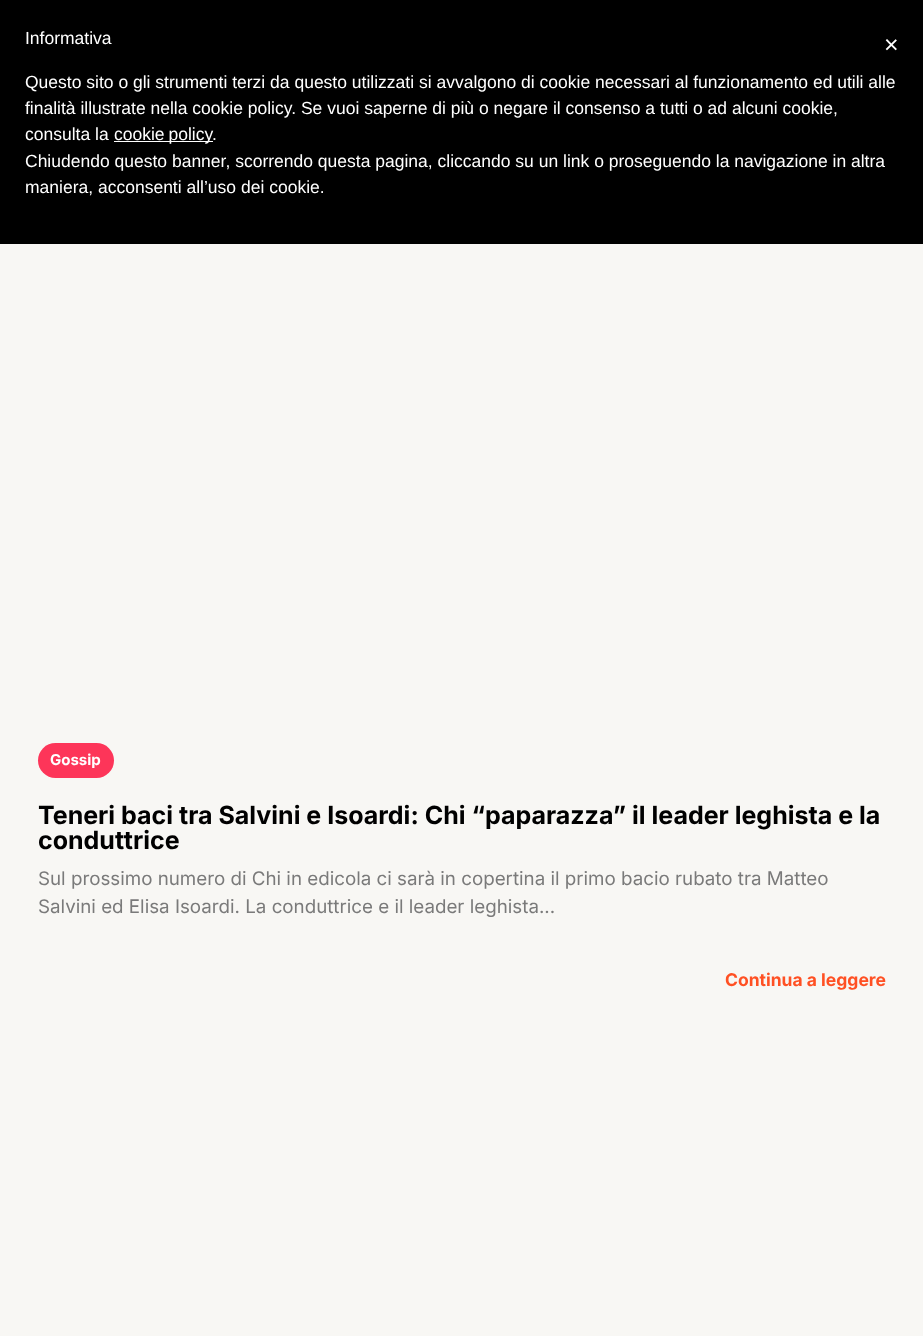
<!DOCTYPE html>
<meta charset="utf-8">
<style>body { margin: 0 } canvas { display: block }</style>
<canvas id="canvas" width="923" height="1336"></canvas>
<script type="module">
  const canvas = document.getElementById("canvas");
  const g = canvas.getContext("2d");
  g.miterLimit = 4;
  g.fontKerning = "normal";
  function drawText(s, x, y, [font, color]) {
    g.font = font;
    g.fillStyle = color;
    g.fillText(s, x, y);
  }
  function fillBox(x, y, w, h, color) {
    g.fillStyle = color;
    g.fillRect(x, y, w, h);
  }
  function fillRounded(x, y, w, h, r, color) {
    g.fillStyle = color;
    g.beginPath();
    g.roundRect(x, y, w, h, r);
    g.fill();
  }

  const s1 = ["17.5px Liberation Sans", "#FFFFFF"];
  const s2 = ["25px Liberation Sans", "#FFFFFF"];
  const s3 = ["bold 15px Inter", "#FFFFFF"];
  const s4 = ["bold 25px Inter", "#000000"];
  const s5 = ["18.75px Inter", "#7A7A7A"];
  const s6 = ["bold 17.5px Inter", "#FF5023"];

  fillBox(0, 0, 923, 1336, "#F8F7F4");
  fillBox(0, 0, 923, 244, "#000000");
  drawText("Informativa", 25, 44, s1);
  drawText("Questo sito o gli strumenti terzi da questo utilizzati si avvalgono di cookie necessari al funzionamento ed utili alle", 25, 88, s1);
  drawText("finalità illustrate nella cookie policy. Se vuoi saperne di più o negare il consenso a tutti o ad alcuni cookie,", 25, 114, s1);
  drawText("consulta la", 25, 140, s1);
  fillBox(114, 141, 99, 1, "#FFFFFF");
  g.wordSpacing = "-1px";
  drawText("cookie policy", 114, 140, s1);
  g.wordSpacing = "0px";
  drawText(".", 212, 140, s1);
  drawText("Chiudendo questo banner, scorrendo questa pagina, cliccando su un link o proseguendo la navigazione in altra", 25, 167, s1);
  drawText("maniera, acconsenti all’uso dei cookie.", 25, 193, s1);
  drawText("×", 884, 53, s2);
  fillRounded(38, 743, 76, 35, 17.5, "#FD3559");
  drawText("Gossip", 50, 765, s3);
  drawText("Teneri baci tra Salvini e Isoardi: Chi “paparazza” il leader leghista e la", 38, 824, s4);
  drawText("conduttrice", 38, 849, s4);
  drawText("Sul prossimo numero di Chi in edicola ci sarà in copertina il primo bacio rubato tra Matteo", 38, 885, s5);
  drawText("Salvini ed Elisa Isoardi. La conduttrice e il leader leghista...", 38, 913, s5);
  drawText("Continua a leggere", 725, 986, s6);
</script>
